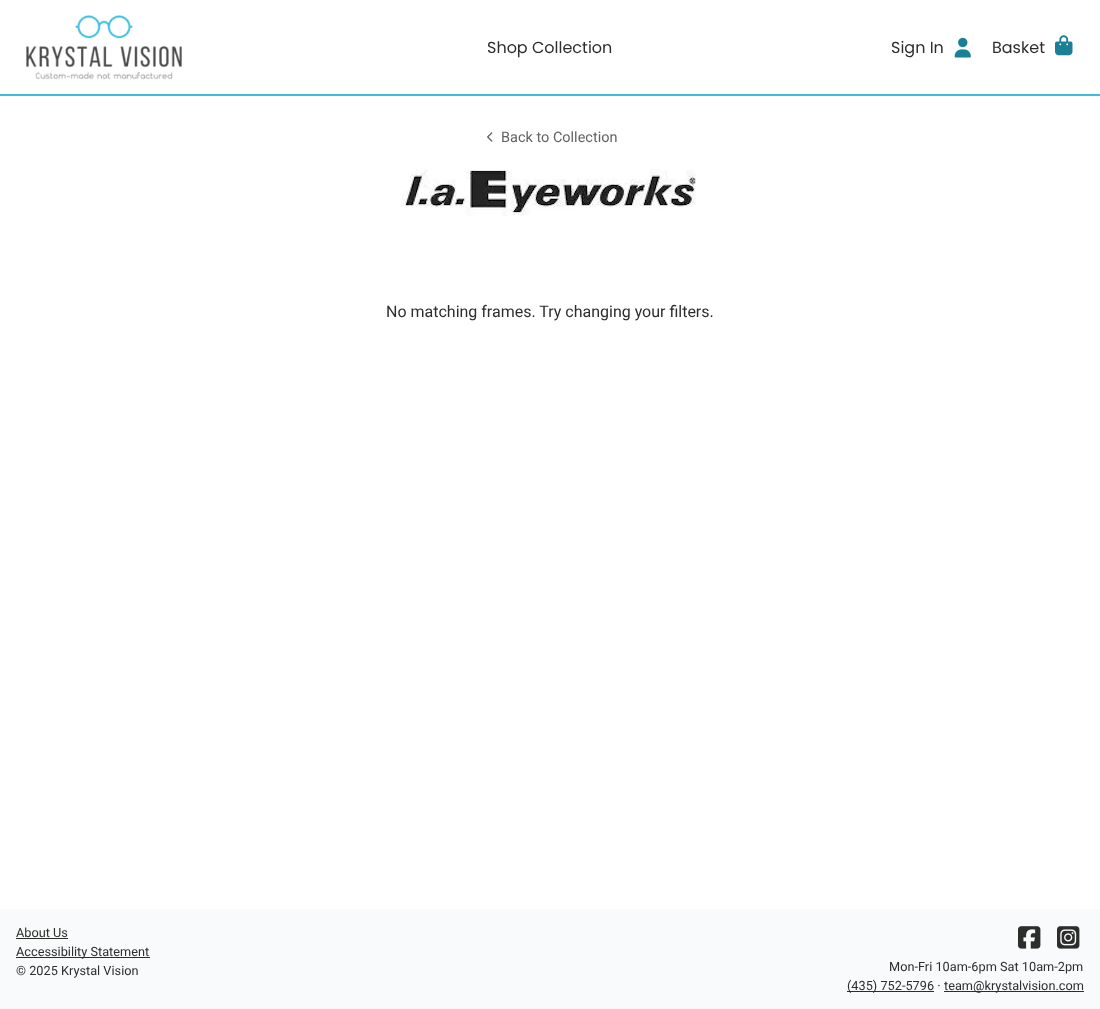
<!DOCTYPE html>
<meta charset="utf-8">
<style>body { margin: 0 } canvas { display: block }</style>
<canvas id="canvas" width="1100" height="1009"></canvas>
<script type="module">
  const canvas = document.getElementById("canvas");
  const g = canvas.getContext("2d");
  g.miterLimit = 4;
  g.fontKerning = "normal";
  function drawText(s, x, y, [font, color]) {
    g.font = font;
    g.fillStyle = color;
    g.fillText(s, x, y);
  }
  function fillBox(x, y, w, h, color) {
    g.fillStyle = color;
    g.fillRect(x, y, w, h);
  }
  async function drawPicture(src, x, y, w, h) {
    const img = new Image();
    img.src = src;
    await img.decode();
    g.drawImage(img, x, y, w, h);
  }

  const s1 = ["16px Poppins", "#2D2D2B"];
  const s2 = ["14.5px Roboto", "#626262"];
  const s3 = ["16px Roboto", "#2D2D2B"];
  const s4 = ["12.75px Roboto", "#2D2D2B"];

  fillBox(0, 0, 1100, 1009, "#FFFFFF");
  fillBox(0, 94, 1100, 2, "#3BBEDC");
  await drawPicture("pic1.png", 26, 15, 156, 65);
  drawText("Shop Collection", 487, 53, s1);
  drawText("Sign In", 891, 53, s1);
  await drawPicture("pic2.png", 954, 37, 17, 21);
  drawText("Basket", 992, 53, s1);
  await drawPicture("pic3.png", 1055, 35, 18, 21);
  await drawPicture("pic4.png", 487, 132, 6, 10);
  drawText("Back to Collection", 501, 142, s2);
  await drawPicture("pic5.png", 400, 169, 296, 47);
  drawText("No matching frames. Try changing your filters.", 386, 317, s3);
  fillBox(0, 909, 1100, 100, "#F8FAFB");
  drawText("About Us", 16, 937, s4);
  fillBox(16, 938, 52, 1, "#2D2D2B");
  fillBox(16, 957, 134, 1, "#2D2D2B");
  drawText("Accessibility Statement", 16, 956, s4);
  drawText("© 2025 Krystal Vision", 16, 975, s4);
  await drawPicture("pic6.png", 1018, 926, 23, 23);
  await drawPicture("pic7.png", 1057, 926, 23, 23);
  drawText("Mon-Fri 10am-6pm Sat 10am-2pm", 889, 971, s4);
  fillBox(847, 991, 87, 1, "#2D2D2B");
  drawText("(435) 752-5796 ·", 847, 990, s4);
  fillBox(944, 991, 140, 1, "#2D2D2B");
  drawText("team@krystalvision.com", 944, 990, s4);
</script>
